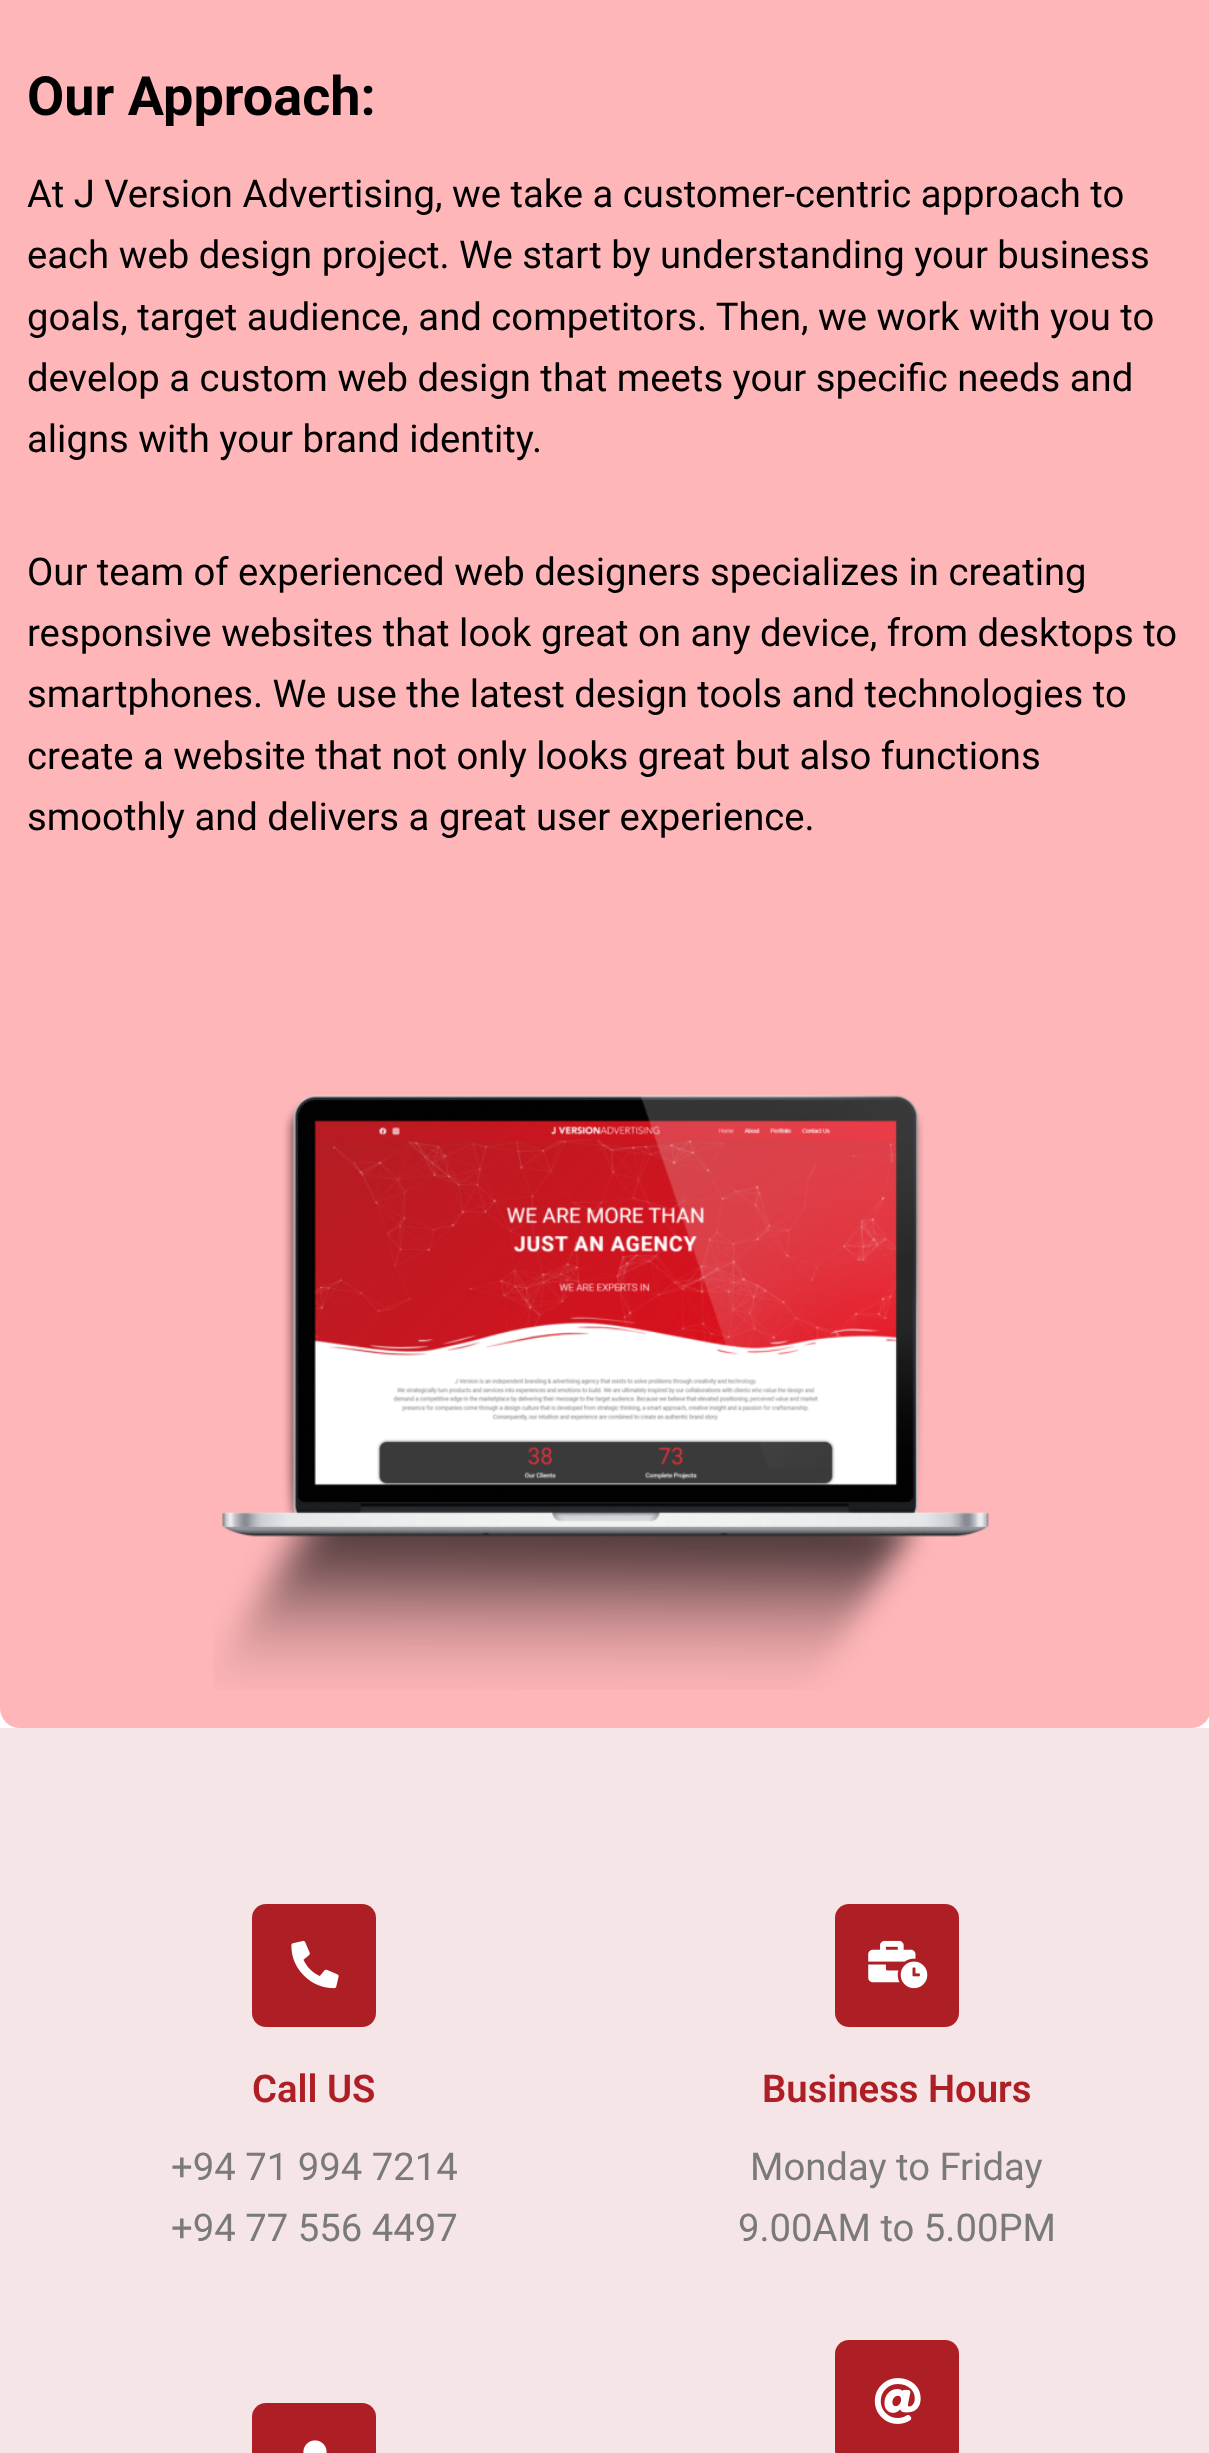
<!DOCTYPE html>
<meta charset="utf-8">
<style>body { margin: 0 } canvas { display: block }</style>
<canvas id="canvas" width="1209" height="2453"></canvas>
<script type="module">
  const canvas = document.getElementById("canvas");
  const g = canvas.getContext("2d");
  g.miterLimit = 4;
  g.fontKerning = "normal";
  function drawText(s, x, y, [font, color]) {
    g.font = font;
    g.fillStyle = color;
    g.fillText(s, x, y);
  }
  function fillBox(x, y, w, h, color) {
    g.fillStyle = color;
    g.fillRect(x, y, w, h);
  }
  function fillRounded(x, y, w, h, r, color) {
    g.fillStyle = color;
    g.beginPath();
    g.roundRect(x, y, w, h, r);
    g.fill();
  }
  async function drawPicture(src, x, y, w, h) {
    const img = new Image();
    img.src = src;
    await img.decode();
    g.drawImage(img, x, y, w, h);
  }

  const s1 = ["bold 54px Roboto", "#000000"];
  const s2 = ["38.25px Roboto", "#000000"];
  const s3 = ["600 38.25px Roboto", "#AE1F25"];
  const s4 = ["38.25px Roboto", "#7A7A7A"];

  fillBox(0, 0, 1209, 2453, "#FFFFFF");
  fillRounded(0, -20, 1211, 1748, 20, "#FFB6B9");
  drawText("Our Approach:", 27, 115, s1);
  drawText("At J Version Advertising, we take a customer-centric approach to", 27, 207, s2);
  drawText("each web design project. We start by understanding your business", 27, 268, s2);
  drawText("goals, target audience, and competitors. Then, we work with you to", 27, 330, s2);
  drawText("develop a custom web design that meets your specific needs and", 27, 391, s2);
  drawText("aligns with your brand identity.", 27, 452, s2);
  drawText("Our team of experienced web designers specializes in creating", 27, 585, s2);
  drawText("responsive websites that look great on any device, from desktops to", 27, 646, s2);
  drawText("smartphones. We use the latest design tools and technologies to", 27, 707, s2);
  drawText("create a website that not only looks great but also functions", 27, 769, s2);
  drawText("smoothly and delivers a great user experience.", 27, 830, s2);
  await drawPicture("pic1.png", 213, 1095, 777, 595);
  fillBox(0, 1728, 1209, 725, "#F6E5E6");
  fillRounded(252, 1904, 124, 123, 14, "#AE1F25");
  await drawPicture("pic2.png", 291, 1940, 48, 49);
  drawText("Call US", 252, 2102, s3);
  drawText("+94 71 994 7214", 171, 2180, s4);
  drawText("+94 77 556 4497", 171, 2241, s4);
  fillRounded(835, 1904, 124, 123, 14, "#AE1F25");
  await drawPicture("pic3.png", 868, 1940, 60, 49);
  drawText("Business Hours", 762, 2102, s3);
  drawText("Monday to Friday", 750, 2180, s4);
  drawText("9.00AM to 5.00PM", 738, 2241, s4);
  fillRounded(252, 2403, 124, 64, 14, "#AE1F25");
  await drawPicture("pic4.png", 303, 2440, 24, 13);
  fillRounded(835, 2340, 124, 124, 14, "#AE1F25");
  await drawPicture("pic5.png", 874, 2378, 47, 46);
</script>
